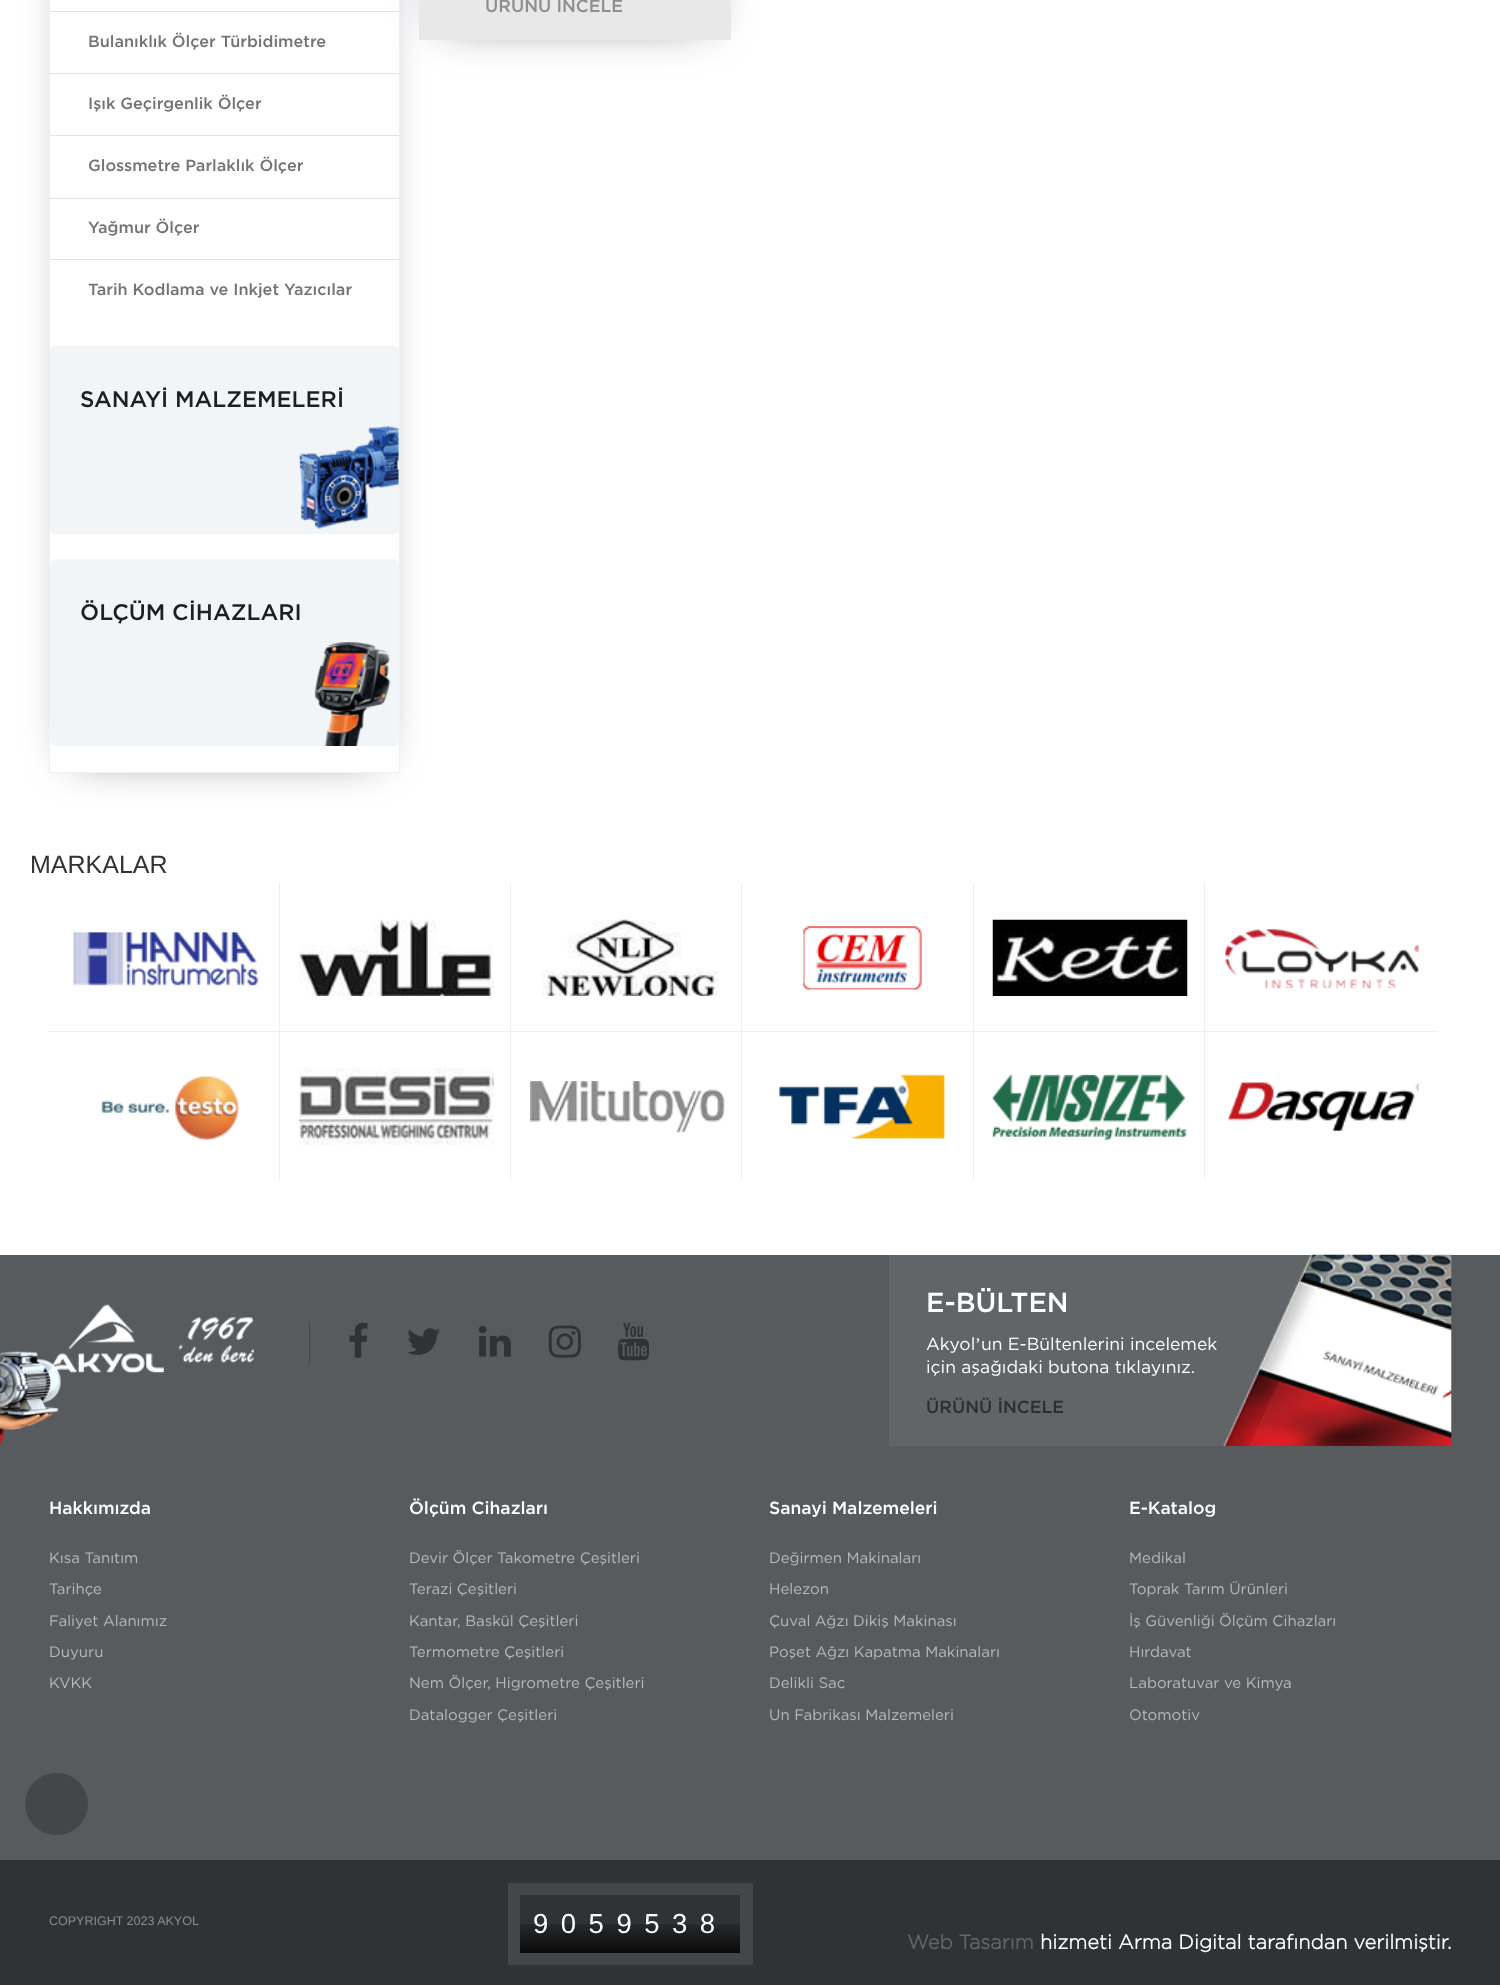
<!DOCTYPE html>
<meta charset="utf-8">
<style>body { margin: 0 } canvas { display: block }</style>
<canvas id="canvas" width="1500" height="1985"></canvas>
<script type="module">
  const canvas = document.getElementById("canvas");
  const g = canvas.getContext("2d");
  g.miterLimit = 4;
  g.fontKerning = "normal";
  function drawText(s, x, y, [font, color]) {
    g.font = font;
    g.fillStyle = color;
    g.fillText(s, x, y);
  }
  function fillBox(x, y, w, h, color) {
    g.fillStyle = color;
    g.fillRect(x, y, w, h);
  }
  function fillRounded(x, y, w, h, r, color) {
    g.fillStyle = color;
    g.beginPath();
    g.roundRect(x, y, w, h, r);
    g.fill();
  }
  async function drawPicture(src, x, y, w, h) {
    const img = new Image();
    img.src = src;
    await img.decode();
    g.drawImage(img, x, y, w, h);
  }
  let gradient;

  const s1 = ["500 17.5px Gotham", "#8D8D8D"];
  const s2 = ["500 16.25px Gotham", "#757375"];
  const s3 = ["500 22.5px Gotham", "#1F1F21"];
  const s4 = ["25px Liberation Sans", "#333333"];
  const s5 = ["500 27.5px Gotham", "#FFFFFF"];
  const s6 = ["17.5px Gotham", "#FFFFFF"];
  const s7 = ["17.5px Liberation Serif", "#FFFFFF"];
  const s8 = ["500 17.5px Gotham", "#2C2F31"];
  const s9 = ["500 17.5px Gotham", "#FFFFFF"];
  const s10 = ["15px Gotham", "#B6BABE"];
  const s11 = ["12.5px Liberation Sans", "#8D8D8D"];
  const s12 = ["27.5px Liberation Sans", "#FFFFFF"];
  const s13 = ["bold 20px Gotham", "#676568"];
  const s14 = ["bold 20px Gotham", "#FFFFFF"];

  fillBox(0, 0, 1500, 1985, "#FFFFFF");
  g.save();
  g.beginPath();
  g.moveTo(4, 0);
  g.lineTo(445, 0);
  g.lineTo(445, 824);
  g.lineTo(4, 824);
  g.closePath();
  g.moveTo(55, -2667);
  g.lineTo(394, -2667);
  g.bezierCurveTo(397.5, -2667, 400, -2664.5, 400, -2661);
  g.lineTo(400, 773);
  g.lineTo(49, 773);
  g.lineTo(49, -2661);
  g.bezierCurveTo(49, -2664.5, 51.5, -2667, 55, -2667);
  g.closePath();
  g.clip("evenodd");
  g.fillStyle = "#6B6076";
  g.filter = "blur(23px)";
  g.beginPath();
  g.rect(74, -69, 301, 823);
  g.fill();
  g.filter = "none";
  g.restore();
  g.strokeStyle = "#F0F0F0";
  g.strokeRect(49.5, -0.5, 350, 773);
  fillBox(50, 11, 349, 1, "#E4E4E4");
  fillBox(50, 73, 349, 1, "#E4E4E4");
  g.fillStyle = "#6B6076";
  g.filter = "blur(23px)";
  g.beginPath();
  g.rect(444, -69, 262, 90);
  g.fill();
  g.filter = "none";
  g.strokeStyle = "#E8E8E8";
  g.strokeRect(419.5, -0.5, 311, 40);
  fillBox(420, 0, 310, 39, "#E8E8E8");
  drawText("ÜRÜNÜ İNCELE", 485, 12, s1);
  drawText("Bulanıklık Ölçer Türbidimetre", 88, 47, s2);
  drawText("Işık Geçirgenlik Ölçer", 88, 109, s2);
  fillBox(50, 135, 349, 1, "#E4E4E4");
  drawText("Glossmetre Parlaklık Ölçer", 88, 171, s2);
  fillBox(50, 198, 349, 1, "#E4E4E4");
  drawText("Yağmur Ölçer", 88, 233, s2);
  fillBox(50, 259, 349, 1, "#E4E4E4");
  drawText("Tarih Kodlama ve Inkjet Yazıcılar", 88, 295, s2);
  fillRounded(50, 346, 349, 188, 6, "#F1F5F8");
  await drawPicture("pic1.png", 298, 425, 101, 104);
  drawText("SANAYİ MALZEMELERİ", 80, 407, s3);
  fillRounded(50, 559, 349, 187, 6, "#F1F5F8");
  await drawPicture("pic2.png", 314, 642, 77, 104);
  drawText("ÖLÇÜM CİHAZLARI", 80, 620, s3);
  drawText("MARKALAR", 30, 873, s4);
  fillBox(49, 1031, 1389, 1, "#EFEFEF");
  fillBox(279, 883, 1, 297, "#EFEFEF");
  await drawPicture("pic3.png", 299, 919, 195, 77);
  fillBox(510, 883, 1, 297, "#EFEFEF");
  await drawPicture("pic4.png", 542, 919, 177, 77);
  fillBox(741, 883, 1, 297, "#EFEFEF");
  await drawPicture("pic5.png", 803, 926, 119, 64);
  fillBox(973, 883, 1, 297, "#EFEFEF");
  await drawPicture("pic6.png", 992, 919, 196, 77);
  fillBox(1204, 883, 1, 297, "#EFEFEF");
  await drawPicture("pic7.png", 1225, 929, 194, 60);
  await drawPicture("pic8.png", 73, 932, 186, 54);
  await drawPicture("pic9.png", 101, 1076, 138, 64);
  await drawPicture("pic10.png", 298, 1068, 196, 77);
  await drawPicture("pic11.png", 530, 1081, 195, 52);
  await drawPicture("pic12.png", 779, 1074, 166, 65);
  await drawPicture("pic13.png", 992, 1074, 195, 66);
  await drawPicture("pic14.png", 1228, 1082, 191, 49);
  fillBox(0, 1255, 1500, 605, "#585B5E");
  await drawPicture("pic15.png", 0, 1351, 61, 94);
  await drawPicture("pic16.png", 48, 1304, 206, 69);
  fillBox(309, 1323, 1, 40, "#434648");
  await drawPicture("pic17.png", 349, 1322, 19, 36);
  await drawPicture("pic18.png", 407, 1328, 33, 27);
  await drawPicture("pic19.png", 478, 1326, 33, 31);
  await drawPicture("pic20.png", 548, 1325, 33, 33);
  await drawPicture("pic21.png", 618, 1322, 31, 39);
  fillBox(889, 1255, 424, 191, "#616567");
  await drawPicture("pic22.png", 1223, 1254, 229, 192);
  drawText("E-BÜLTEN", 926, 1312, s5);
  drawText("Akyol", 926, 1350, s6);
  drawText("’", 975, 1350, s7);
  drawText("un E-Bültenlerini incelemek", 981, 1350, s6);
  drawText("için aşağıdaki butona tıklayınız.", 926, 1373, s6);
  drawText("ÜRÜNÜ İNCELE", 926, 1413, s8);
  drawText("Hakkımızda", 49, 1514, s9);
  drawText("Kısa Tanıtım", 49, 1563, s10);
  drawText("Tarihçe", 49, 1594, s10);
  drawText("Faliyet Alanımız", 49, 1626, s10);
  drawText("Duyuru", 49, 1657, s10);
  drawText("KVKK", 49, 1688, s10);
  drawText("Ölçüm Cihazları", 409, 1514, s9);
  drawText("Devir Ölçer Takometre Çeşitleri", 409, 1563, s10);
  drawText("Terazi Çeşitleri", 409, 1594, s10);
  drawText("Kantar, Baskül Çeşitleri", 409, 1626, s10);
  drawText("Termometre Çeşitleri", 409, 1657, s10);
  drawText("Nem Ölçer, Higrometre Çeşitleri", 409, 1688, s10);
  drawText("Datalogger Çeşitleri", 409, 1720, s10);
  drawText("Sanayi Malzemeleri", 769, 1514, s9);
  drawText("Değirmen Makinaları", 769, 1563, s10);
  drawText("Helezon", 769, 1594, s10);
  drawText("Çuval Ağzı Dikiş Makinası", 769, 1626, s10);
  drawText("Poşet Ağzı Kapatma Makinaları", 769, 1657, s10);
  drawText("Delikli Sac", 769, 1688, s10);
  drawText("Un Fabrikası Malzemeleri", 769, 1720, s10);
  drawText("E-Katalog", 1129, 1514, s9);
  drawText("Medikal", 1129, 1563, s10);
  drawText("Toprak Tarım Ürünleri", 1129, 1594, s10);
  drawText("İş Güvenliği Ölçüm Cihazları", 1129, 1626, s10);
  drawText("Hırdavat", 1129, 1657, s10);
  drawText("Laboratuvar ve Kimya", 1129, 1688, s10);
  drawText("Otomotiv", 1129, 1720, s10);
  fillBox(0, 1860, 1500, 125, "#2F3335");
  drawText("COPYRIGHT 2023 AKYOL", 49, 1925, s11);
  fillBox(508, 1883, 245, 82, "#434749");
  gradient = g.createLinearGradient(630, 1895, 630, 1953);
  gradient.addColorStop(0, "#2F3335");
  gradient.addColorStop(0.5, "#2F3335");
  gradient.addColorStop(0.51, "#26292C");
  gradient.addColorStop(1, "#0A0809");
  g.fillStyle = gradient;
  g.fillRect(520, 1895, 220, 58);
  g.letterSpacing = "12.5px";
  drawText("9059538", 533, 1933, s12);
  g.letterSpacing = "0px";
  drawText("Web Tasarım", 907, 1949, s13);
  drawText("hizmeti Arma Digital tarafından verilmiştir.", 1040, 1949, s14);
  fillRounded(25, 1773, 63, 62, 31, "#44474A");
</script>
